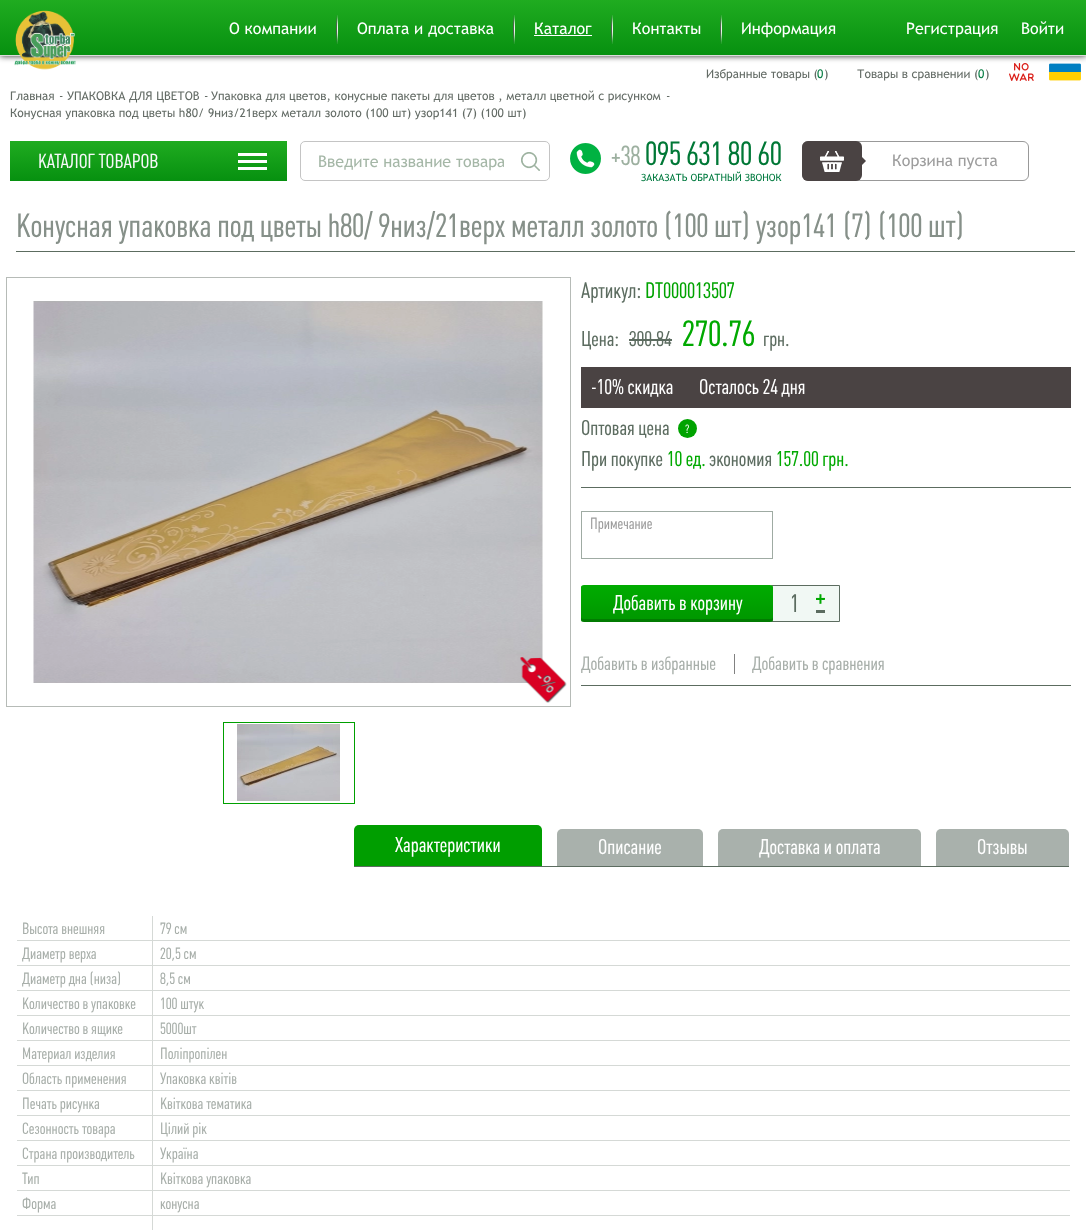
<!DOCTYPE html>
<meta charset="utf-8">
<style>body { margin: 0 } canvas { display: block }</style>
<canvas id="canvas" width="1086" height="1230"></canvas>
<script type="module">
  const canvas = document.getElementById("canvas");
  const g = canvas.getContext("2d");
  g.miterLimit = 4;
  g.fontKerning = "normal";
  function drawText(s, x, y, [font, color]) {
    g.font = font;
    g.fillStyle = color;
    g.fillText(s, x, y);
  }
  function fillBox(x, y, w, h, color) {
    g.fillStyle = color;
    g.fillRect(x, y, w, h);
  }
  function fillRounded(x, y, w, h, r, color) {
    g.fillStyle = color;
    g.beginPath();
    g.roundRect(x, y, w, h, r);
    g.fill();
  }
  async function drawPicture(src, x, y, w, h) {
    const img = new Image();
    img.src = src;
    await img.decode();
    g.drawImage(img, x, y, w, h);
  }
  let gradient;

  const s1 = ["16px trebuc", "#FFFFFF"];
  const s2 = ["12px trebuc", "#646C66"];
  const s3 = ["12px trebuc", "#007A3F"];
  const s4 = ["20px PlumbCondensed", "#F6F8F8"];
  const s5 = ["16px trebuc", "#A5B7A7"];
  const s6 = ["27px PlumbCondensed", "#9DB0A0"];
  const s7 = ["33px PlumbCondensed", "#007836"];
  const s8 = ["10px trebuc", "#007A3F"];
  const s9 = ["16px trebuc", "#9D9D9D"];
  const s10 = ["33px PlumbCondensed", "#869089"];
  const s11 = ["22px PlumbCondensed", "#5C6C60"];
  const s12 = ["22px PlumbCondensed", "#00A300"];
  const s13 = ["21px PlumbCondensed", "#5C6C60"];
  const s14 = ["36px PlumbCondensed", "#00A900"];
  const s15 = ["21px PlumbCondensed", "#FFFFFF"];
  const s16 = ["12px PlumbCondensed", "#FFFFFF"];
  const s17 = ["21px PlumbCondensed", "#00A900"];
  const s18 = ["16px PlumbCondensed", "#9D9D9D"];
  const s19 = ["25px PlumbCondensed", "#5C6C60"];
  const s20 = ["19px PlumbCondensed", "#A8AFAA"];
  const s21 = ["16px PlumbCondensed", "#A8AFAA"];

  fillBox(0, 0, 1086, 1230, "#FFFFFF");
  g.fillStyle = "rgba(0, 0, 0, 0.83)";
  g.filter = "blur(3px)";
  g.beginPath();
  g.rect(0, 0, 1086, 56);
  g.fill();
  g.filter = "none";
  gradient = g.createLinearGradient(543, 58, 543, -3);
  gradient.addColorStop(0, "#058F0F");
  gradient.addColorStop(1, "#21AD21");
  g.fillStyle = gradient;
  g.fillRect(0, 0, 1086, 55);
  fillBox(0, 55, 1086, 1, "#DCDCDC");
  drawText("О компании", 229, 34, s1);
  await drawPicture("pic1.png", 336, 15, 2, 29);
  drawText("Оплата и доставка", 357, 34, s1);
  await drawPicture("pic1.png", 513, 15, 2, 29);
  drawText("Каталог", 534, 34, s1);
  fillBox(534, 35, 58, 1, "#FFFFFF");
  await drawPicture("pic1.png", 611, 15, 2, 29);
  drawText("Контакты", 632, 34, s1);
  await drawPicture("pic1.png", 720, 15, 2, 29);
  drawText("Информация", 741, 34, s1);
  drawText("Регистрация", 906, 34, s1);
  drawText("Войти", 1021, 34, s1);
  await drawPicture("pic2.png", 14, 10, 62, 60);
  drawText("Избранные товары (", 706, 78, s2);
  drawText("0", 817, 78, s3);
  drawText(")", 824, 78, s2);
  drawText("Товары в сравнении (", 857, 78, s2);
  drawText("0", 978, 78, s3);
  drawText(")", 985, 78, s2);
  await drawPicture("pic3.png", 1009, 63, 25, 18);
  await drawPicture("pic4.png", 1049, 63, 32, 18);
  drawText("Главная", 10, 100, s2);
  drawText("-", 59, 100, s2);
  drawText("УПАКОВКА ДЛЯ ЦВЕТОВ", 67, 100, s2);
  drawText("-", 204, 100, s2);
  drawText("Упаковка для цветов, конусные пакеты для цветов , металл цветной с рисунком", 211, 100, s2);
  drawText("-", 666, 100, s2);
  drawText("Конусная упаковка под цветы h80/ 9низ/21верх металл золото (100 шт) узор141 (7) (100 шт)", 10, 117, s2);
  gradient = g.createLinearGradient(149, 183, 149, 139);
  gradient.addColorStop(0, "#058F0F");
  gradient.addColorStop(1, "#21AD21");
  g.fillStyle = gradient;
  g.fillRect(10, 141, 277, 40);
  drawText("КАТАЛОГ ТОВАРОВ", 38, 168, s4);
  fillBox(238, 160, 29, 3, "#FFFFFF");
  fillBox(238, 153, 29, 3, "#FFFFFF");
  fillBox(238, 167, 29, 3, "#FFFFFF");
  g.beginPath();
  g.roundRect(300.5, 141.5, 249, 39, 4.5);
  g.strokeStyle = "#C4C4C4";
  g.stroke();
  g.save();
  g.beginPath();
  g.rect(318, 152, 186, 19);
  g.clip();
  drawText("Введите название товара", 318, 167, s5);
  g.restore();
  await drawPicture("pic5.png", 521, 152, 19, 19);
  await drawPicture("pic6.png", 570, 143, 31, 31);
  drawText("+38", 611, 165, s6);
  drawText("095 631 80 60", 645, 165, s7);
  drawText("ЗАКАЗАТЬ ОБРАТНЫЙ ЗВОНОК", 641, 181, s8);
  g.beginPath();
  g.roundRect(802.5, 141.5, 226, 39, 5.5);
  g.strokeStyle = "#999999";
  g.stroke();
  fillRounded(802, 141, 60, 40, 6, "#4A4343");
  await drawPicture("pic7.png", 820, 151, 24, 21);
  g.beginPath();
  g.moveTo(862, 165);
  g.lineTo(862, 157);
  g.lineTo(866, 161);
  g.closePath();
  g.fill();
  drawText("Корзина пуста", 892, 166, s9);
  drawText("Конусная упаковка под цветы h80/ 9низ/21верх металл золото (100 шт) узор141 (7) (100 шт)", 16, 237, s10);
  fillBox(16, 251, 1059, 1, "#5C6C60");
  g.strokeStyle = "#B6BBB7";
  g.strokeRect(6.5, 277.5, 564, 429);
  await drawPicture("pic8.png", 33, 301, 510, 382);
  await drawPicture("pic9.png", 520, 657, 47, 46);
  g.strokeStyle = "#00A000";
  g.strokeRect(223.5, 722.5, 131, 81);
  await drawPicture("pic10.png", 237, 724, 103, 77);
  fillBox(581, 487, 490, 1, "#5C6C60");
  drawText("Артикул:", 581, 298, s11);
  drawText("DT000013507", 645, 298, s12);
  drawText("Цена:", 581, 346, s13);
  drawText("300.84", 629, 346, s13);
  fillBox(629, 339, 43, 2, "#5C6C60");
  drawText("270.76", 682, 346, s14);
  drawText("грн.", 763, 346, s13);
  fillBox(581, 367, 490, 41, "#4A4343");
  drawText("-10% скидка", 591, 394, s15);
  drawText("Осталось 24 дня", 699, 394, s15);
  drawText("Оптовая цена", 581, 435, s13);
  g.fillStyle = "#00A300";
  g.beginPath();
  g.arc(687.5, 428.5, 9.5, 0, Math.PI * 2);
  g.fill();
  drawText("?", 685, 433, s16);
  drawText("При покупке", 581, 466, s13);
  drawText("10 ед.", 667, 466, s17);
  drawText("экономия", 709, 466, s13);
  drawText("157.00 грн.", 776, 466, s17);
  fillBox(581, 685, 490, 1, "#5C6C60");
  g.strokeStyle = "#9FABA3";
  g.strokeRect(581.5, 511.5, 191, 47);
  drawText("Примечание", 590, 529, s18);
  g.fillStyle = "#F1F8F4";
  g.beginPath();
  g.rect(771.5, 585.5, 68, 36);
  g.fill();
  g.strokeStyle = "#5C6C60";
  g.stroke();
  gradient = g.createLinearGradient(677, 585, 677, 622);
  gradient.addColorStop(0, "#00AB00");
  gradient.addColorStop(0.33, "#00A500");
  gradient.addColorStop(0.66, "#009D00");
  gradient.addColorStop(1, "#009700");
  g.fillStyle = gradient;
  g.beginPath();
  g.moveTo(584, 585);
  g.lineTo(770, 585);
  g.bezierCurveTo(772, 585, 773, 586, 773, 587);
  g.lineTo(773, 620);
  g.bezierCurveTo(773, 621, 772, 622, 770, 622);
  g.lineTo(584, 622);
  g.bezierCurveTo(582, 622, 581, 621, 581, 620);
  g.lineTo(581, 587);
  g.bezierCurveTo(581, 586, 582, 585, 584, 585);
  g.closePath();
  g.fill();
  g.fillStyle = "rgba(3, 4, 4, 0.19)";
  g.beginPath();
  g.moveTo(581, 617);
  g.lineTo(581, 620);
  g.bezierCurveTo(581, 621, 582, 622, 584, 622);
  g.lineTo(770, 622);
  g.bezierCurveTo(772, 622, 773, 621, 773, 620);
  g.lineTo(773, 617);
  g.bezierCurveTo(773, 618, 772, 619, 770, 619);
  g.lineTo(584, 619);
  g.bezierCurveTo(582, 619, 581, 618, 581, 617);
  g.closePath();
  g.fill();
  drawText("Добавить в корзину", 613, 610, s15);
  drawText("1", 790, 612, s19);
  await drawPicture("pic11.png", 816, 594, 9, 10);
  fillBox(816, 610, 9, 3, "#5C6C60");
  drawText("Добавить в избранные", 581, 670, s20);
  fillBox(734, 654, 1, 20, "#818181");
  drawText("Добавить в сравнения", 752, 670, s20);
  g.fillStyle = "#009E00";
  g.beginPath();
  g.roundRect(354, 825, 188, 42, [5, 5, 0, 0]);
  g.fill();
  drawText("Характеристики", 395, 852, s15);
  fillBox(354, 866, 188, 1, "#5C6C60");
  g.fillStyle = "#A9B1AC";
  g.beginPath();
  g.roundRect(557, 829, 146, 38, [5, 5, 0, 0]);
  g.fill();
  drawText("Описание", 598, 854, s15);
  fillBox(542, 866, 161, 1, "#5C6C60");
  g.fillStyle = "#A9B1AC";
  g.beginPath();
  g.roundRect(718, 829, 203, 38, [5, 5, 0, 0]);
  g.fill();
  drawText("Доставка и оплата", 759, 854, s15);
  fillBox(703, 866, 218, 1, "#5C6C60");
  g.fillStyle = "#A9B1AC";
  g.beginPath();
  g.roundRect(936, 829, 133, 38, [5, 5, 0, 0]);
  g.fill();
  drawText("Отзывы", 977, 854, s15);
  fillBox(921, 866, 148, 1, "#5C6C60");
  fillBox(152, 1215, 1, 15, "#D5D9D6");
  fillBox(152, 1215, 918, 1, "#D5D9D6");
  fillBox(152, 1190, 1, 26, "#D5D9D6");
  fillBox(152, 1190, 918, 1, "#D5D9D6");
  fillBox(152, 1165, 1, 26, "#D5D9D6");
  fillBox(152, 1165, 918, 1, "#D5D9D6");
  fillBox(152, 1140, 1, 26, "#D5D9D6");
  fillBox(152, 1140, 918, 1, "#D5D9D6");
  fillBox(152, 1115, 1, 26, "#D5D9D6");
  fillBox(152, 1115, 918, 1, "#D5D9D6");
  fillBox(152, 1090, 1, 26, "#D5D9D6");
  fillBox(152, 1090, 918, 1, "#D5D9D6");
  fillBox(152, 1065, 1, 26, "#D5D9D6");
  fillBox(152, 1065, 918, 1, "#D5D9D6");
  fillBox(152, 1040, 1, 26, "#D5D9D6");
  fillBox(152, 1040, 918, 1, "#D5D9D6");
  fillBox(152, 1015, 1, 26, "#D5D9D6");
  fillBox(152, 1015, 918, 1, "#D5D9D6");
  fillBox(152, 990, 1, 26, "#D5D9D6");
  fillBox(152, 990, 918, 1, "#D5D9D6");
  fillBox(152, 965, 1, 26, "#D5D9D6");
  fillBox(152, 965, 918, 1, "#D5D9D6");
  fillBox(152, 940, 1, 26, "#D5D9D6");
  fillBox(152, 940, 918, 1, "#D5D9D6");
  fillBox(152, 916, 1, 25, "#D5D9D6");
  fillBox(17, 940, 136, 1, "#D5D9D6");
  drawText("Высота внешняя", 22, 934, s21);
  drawText("79 см", 160, 934, s21);
  fillBox(17, 965, 136, 1, "#D5D9D6");
  drawText("Диаметр верха", 22, 959, s21);
  drawText("20,5 см", 160, 959, s21);
  fillBox(17, 990, 136, 1, "#D5D9D6");
  drawText("Диаметр дна (низа)", 22, 984, s21);
  drawText("8,5 см", 160, 984, s21);
  fillBox(17, 1015, 136, 1, "#D5D9D6");
  drawText("Количество в упаковке", 22, 1009, s21);
  drawText("100 штук", 160, 1009, s21);
  fillBox(17, 1040, 136, 1, "#D5D9D6");
  drawText("Количество в ящике", 22, 1034, s21);
  drawText("5000шт", 160, 1034, s21);
  fillBox(17, 1065, 136, 1, "#D5D9D6");
  drawText("Материал изделия", 22, 1059, s21);
  drawText("Поліпропілен", 160, 1059, s21);
  fillBox(17, 1090, 136, 1, "#D5D9D6");
  drawText("Область применения", 22, 1084, s21);
  drawText("Упаковка квітів", 160, 1084, s21);
  fillBox(17, 1115, 136, 1, "#D5D9D6");
  drawText("Печать рисунка", 22, 1109, s21);
  drawText("Квіткова тематика", 160, 1109, s21);
  fillBox(17, 1140, 136, 1, "#D5D9D6");
  drawText("Сезонность товара", 22, 1134, s21);
  drawText("Цілий рік", 160, 1134, s21);
  fillBox(17, 1165, 136, 1, "#D5D9D6");
  drawText("Страна производитель", 22, 1159, s21);
  drawText("Україна", 160, 1159, s21);
  fillBox(17, 1190, 136, 1, "#D5D9D6");
  drawText("Тип", 22, 1184, s21);
  drawText("Квіткова упаковка", 160, 1184, s21);
  fillBox(17, 1215, 136, 1, "#D5D9D6");
  drawText("Форма", 22, 1209, s21);
  drawText("конусна", 160, 1209, s21);
</script>
